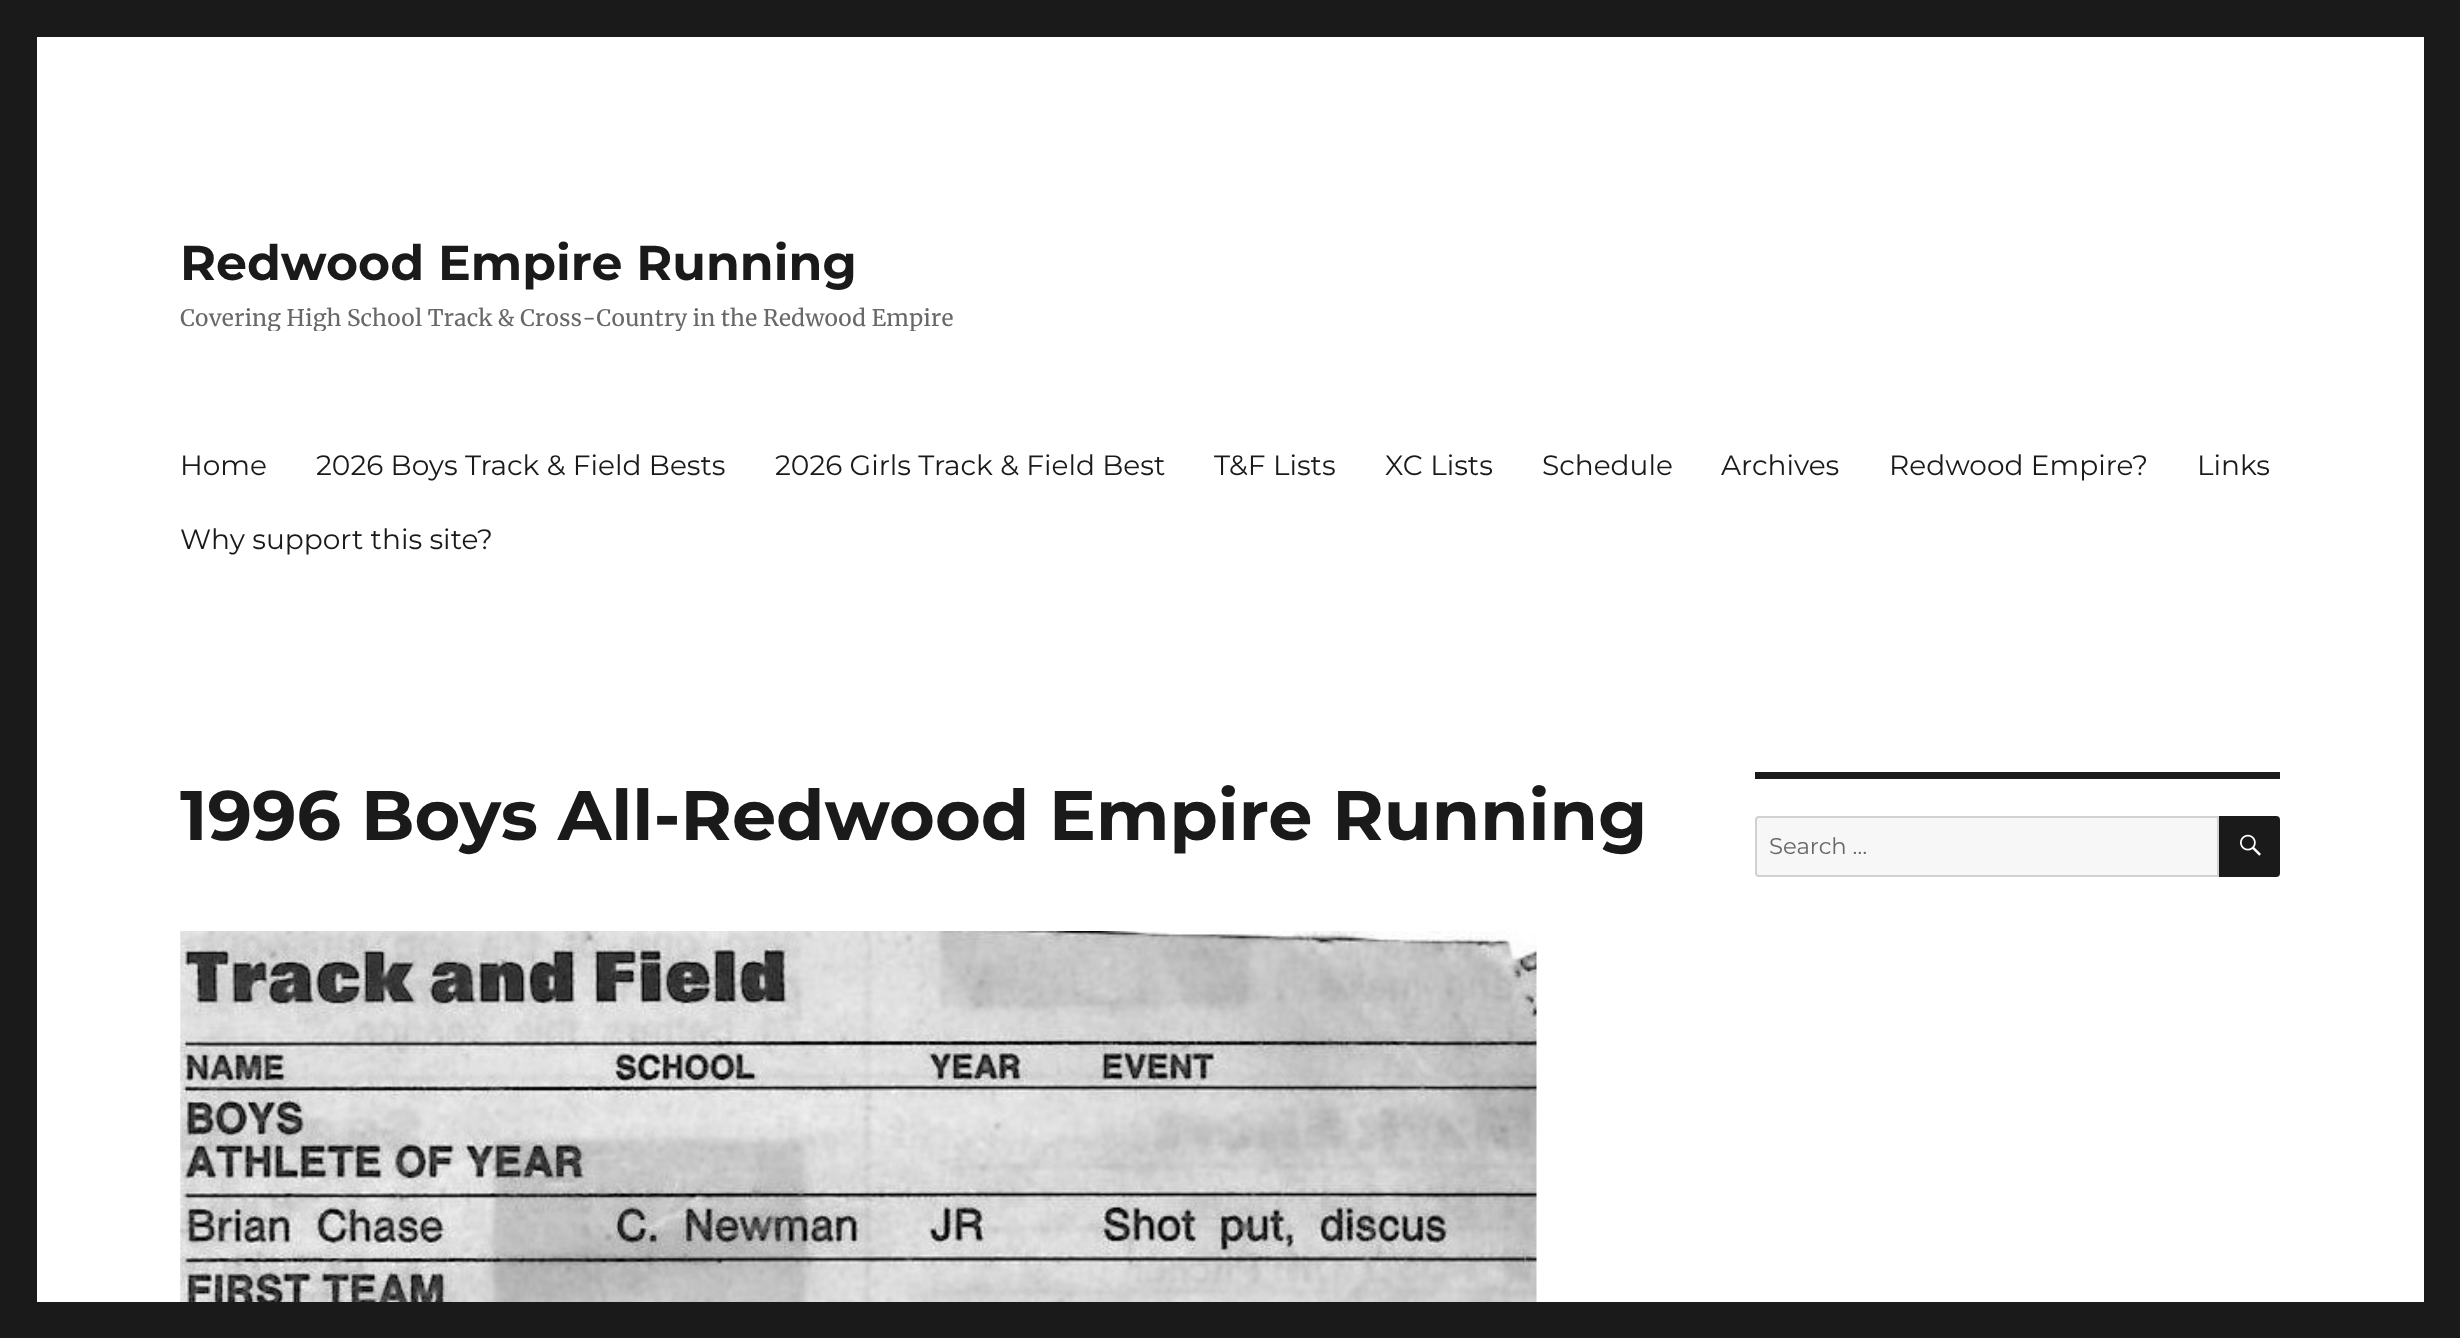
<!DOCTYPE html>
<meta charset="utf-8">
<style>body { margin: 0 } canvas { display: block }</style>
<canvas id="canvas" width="2460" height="1338"></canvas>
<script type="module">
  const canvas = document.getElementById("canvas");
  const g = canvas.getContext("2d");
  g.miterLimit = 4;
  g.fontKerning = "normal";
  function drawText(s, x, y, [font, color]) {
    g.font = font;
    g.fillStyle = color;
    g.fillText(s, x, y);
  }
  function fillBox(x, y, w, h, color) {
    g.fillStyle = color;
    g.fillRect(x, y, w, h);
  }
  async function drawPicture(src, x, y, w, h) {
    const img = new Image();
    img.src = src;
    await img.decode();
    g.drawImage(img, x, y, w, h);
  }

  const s1 = ["100 49px Montserrat", "#1A1A1A"];
  const s2 = ["22.75px Merriweather", "#686868"];
  const s3 = ["100 28px 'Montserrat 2'", "#1A1A1A"];
  const s4 = ["100 70px Montserrat", "#1A1A1A"];
  const s5 = ["100 22.75px 'Montserrat 2'", "#686868"];

  fillBox(0, 0, 2460, 1338, "#1A1A1A");
  fillBox(37, 37, 2387, 1265, "#FFFFFF");
  drawText("Redwood Empire Running", 180, 280, s1);
  g.save();
  g.beginPath();
  g.rect(180, 233, 774, 98);
  g.clip();
  drawText("Covering High School Track & Cross-Country in the Redwood Empire", 180, 326, s2);
  g.restore();
  drawText("Home", 180, 475, s3);
  drawText("2026 Boys Track & Field Bests", 316, 475, s3);
  drawText("2026 Girls Track & Field Best", 775, 475, s3);
  drawText("T&F Lists", 1214, 475, s3);
  drawText("XC Lists", 1385, 475, s3);
  drawText("Schedule", 1542, 475, s3);
  drawText("Archives", 1721, 475, s3);
  drawText("Redwood Empire?", 1889, 475, s3);
  drawText("Links", 2197, 475, s3);
  drawText("Why support this site?", 180, 549, s3);
  drawText("1996 Boys All-Redwood Empire Running", 180, 840, s4);
  await drawPicture("pic1.png", 180, 931, 1357, 371);
  fillBox(1755, 772, 525, 7, "#1A1A1A");
  g.fillStyle = "#F7F7F7";
  g.beginPath();
  g.roundRect(1756, 817, 462, 59, [3, 0, 0, 3]);
  g.fill();
  g.strokeStyle = "#D1D1D1";
  g.lineWidth = 2;
  g.stroke();
  drawText("Search …", 1769, 854, s5);
  g.fillStyle = "#1A1A1A";
  g.beginPath();
  g.roundRect(2219, 816, 61, 61, [0, 4, 4, 0]);
  g.fill();
  await drawPicture("pic2.png", 2240, 834, 21, 22);
</script>
